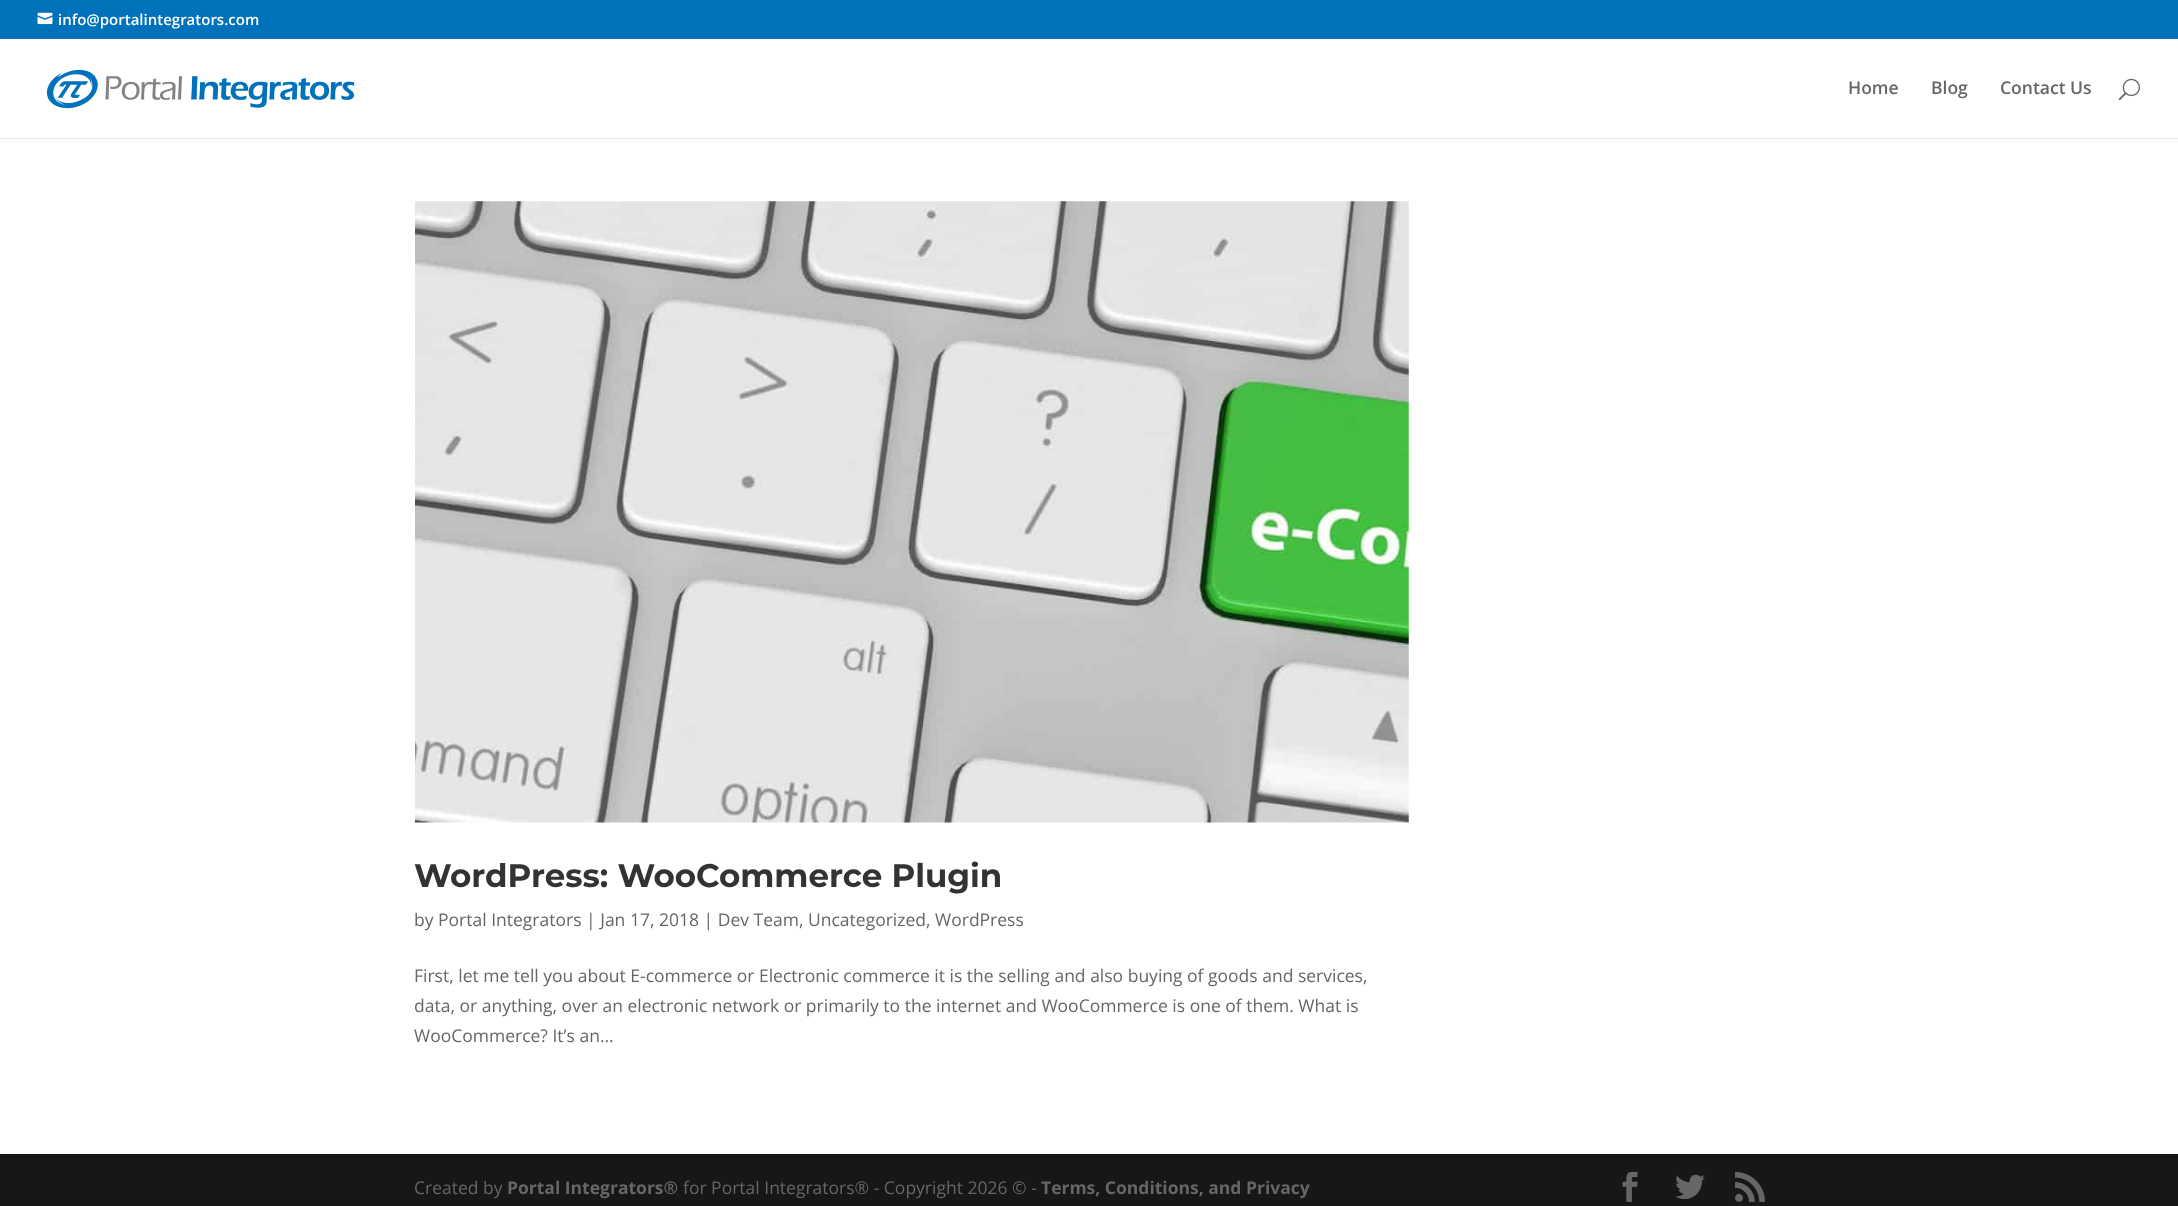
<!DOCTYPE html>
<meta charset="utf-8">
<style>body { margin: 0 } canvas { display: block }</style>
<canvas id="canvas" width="2178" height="1206"></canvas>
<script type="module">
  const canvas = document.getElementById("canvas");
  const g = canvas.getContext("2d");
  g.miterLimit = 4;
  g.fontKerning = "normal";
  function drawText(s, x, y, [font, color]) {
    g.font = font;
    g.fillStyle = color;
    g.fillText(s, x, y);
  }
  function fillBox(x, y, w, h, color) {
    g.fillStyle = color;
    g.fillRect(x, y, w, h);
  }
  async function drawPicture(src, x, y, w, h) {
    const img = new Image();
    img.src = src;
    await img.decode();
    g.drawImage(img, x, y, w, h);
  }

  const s1 = ["600 15px Open Sans", "#FFFFFF"];
  const s2 = ["600 17.5px Open Sans", "#666666"];
  const s3 = ["bold 32.5px Montserrat", "#333333"];
  const s4 = ["17.5px Open Sans", "#666666"];
  const s5 = ["bold 17.5px Open Sans", "#666666"];

  fillBox(0, 0, 2178, 1206, "#FFFFFF");
  fillBox(0, 0, 2178, 39, "#0072BC");
  await drawPicture("pic1.png", 37, 12, 16, 13);
  drawText("info@portalintegrators.com", 58, 25, s1);
  g.fillStyle = "#E6E6E6";
  g.beginPath();
  g.moveTo(0, 138);
  g.lineTo(0, 139);
  g.lineTo(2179, 139);
  g.lineTo(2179, 39);
  g.lineTo(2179, 138);
  g.closePath();
  g.fill();
  await drawPicture("pic2.png", 46, 69, 309, 40);
  drawText("Home", 1848, 94, s2);
  drawText("Blog", 1931, 94, s2);
  drawText("Contact Us", 2000, 94, s2);
  await drawPicture("pic3.png", 2118, 78, 22, 23);
  await drawPicture("pic4.png", 415, 201, 994, 622);
  drawText("WordPress: WooCommerce Plugin", 414, 887, s3);
  drawText("by Portal Integrators | Jan 17, 2018 | Dev Team, Uncategorized, WordPress", 414, 926, s4);
  drawText("First, let me tell you about E-commerce or Electronic commerce it is the selling and also buying of goods and services,", 414, 982, s4);
  drawText("data, or anything, over an electronic network or primarily to the internet and WooCommerce is one of them. What is", 414, 1012, s4);
  drawText("WooCommerce? It’s an...", 414, 1042, s4);
  fillBox(0, 1154, 2178, 52, "#171717");
  drawText("Created by", 414, 1194, s4);
  drawText("Portal Integrators®", 507, 1194, s5);
  drawText("for Portal Integrators® - Copyright 2026 © -", 683, 1194, s4);
  drawText("Terms, Conditions, and Privacy", 1041, 1194, s5);
  await drawPicture("pic5.png", 1622, 1171, 16, 31);
  await drawPicture("pic6.png", 1675, 1174, 30, 26);
  await drawPicture("pic7.png", 1735, 1171, 30, 31);
</script>
